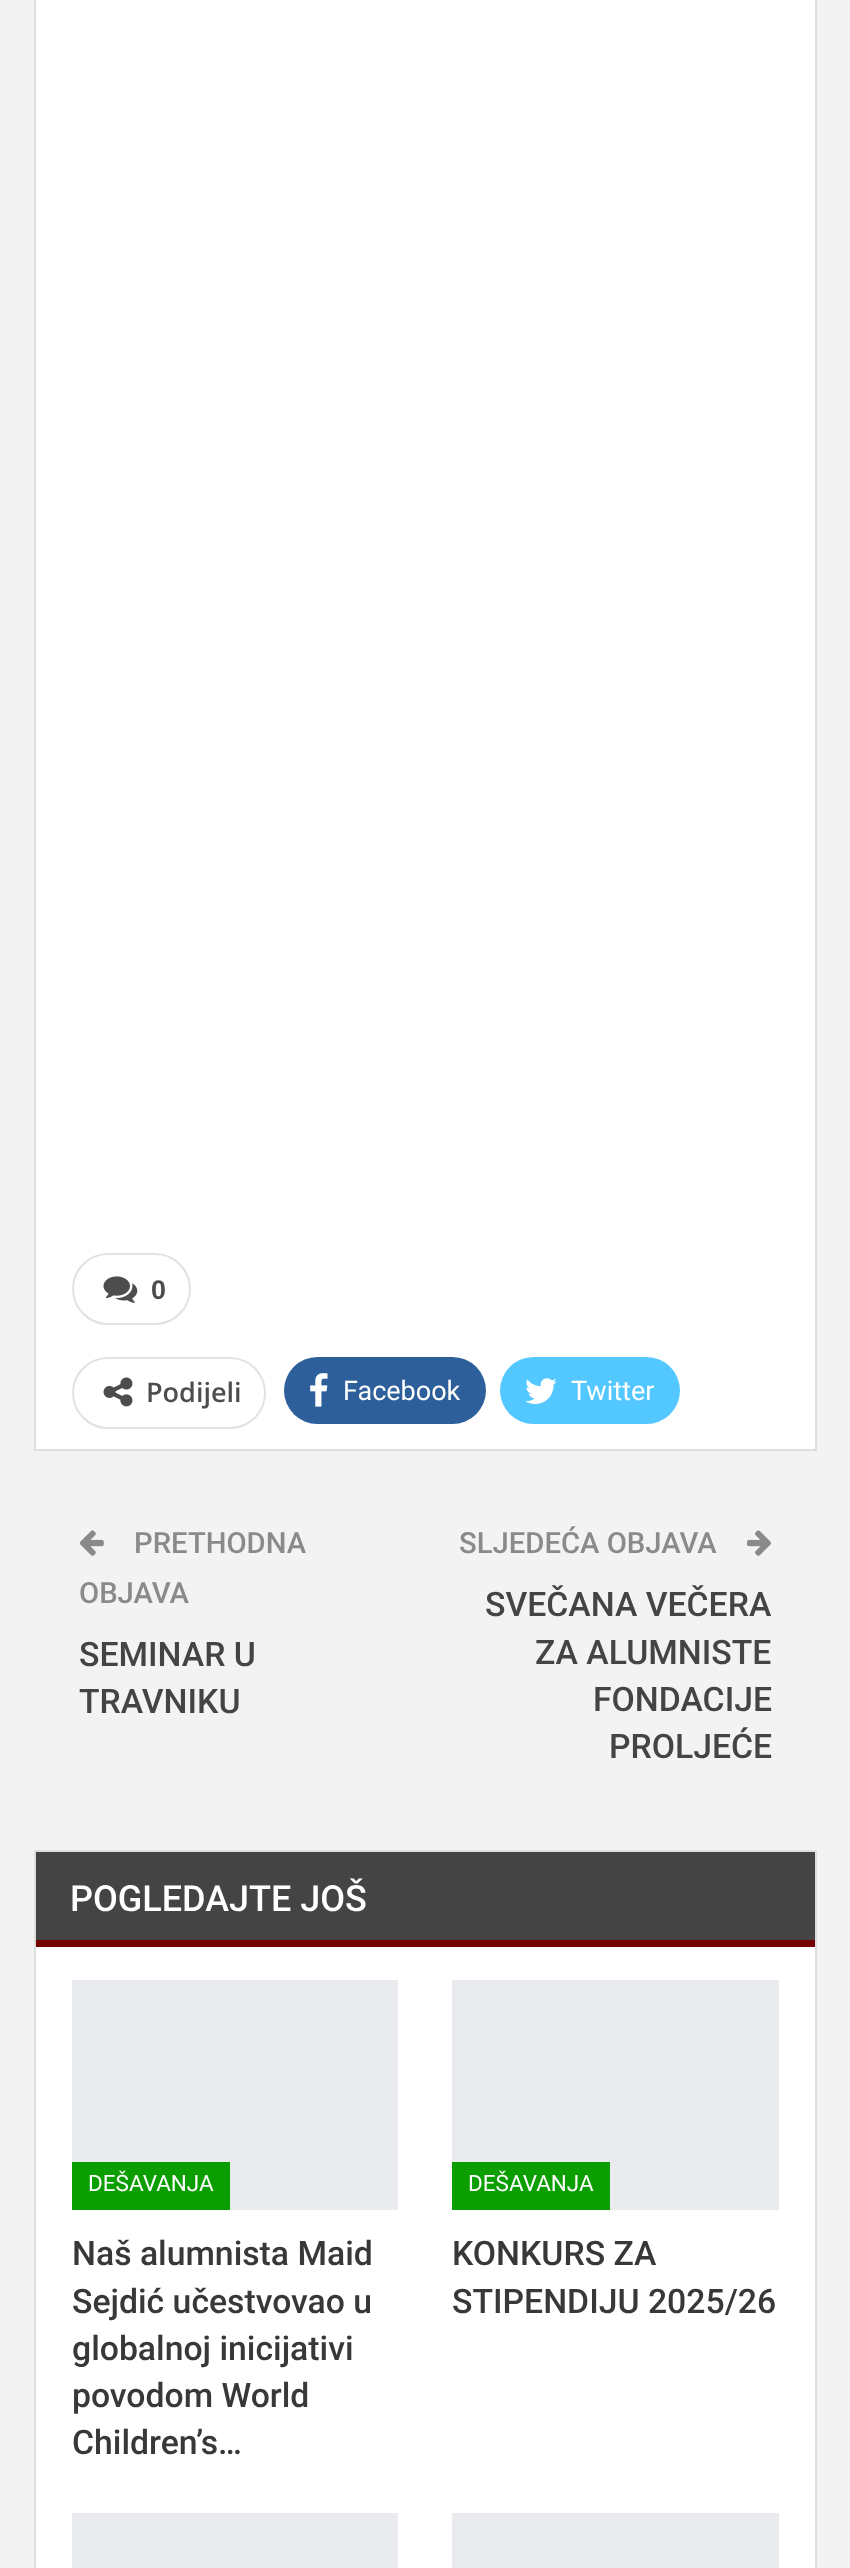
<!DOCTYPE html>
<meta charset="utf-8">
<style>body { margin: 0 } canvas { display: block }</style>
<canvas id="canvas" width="850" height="2568"></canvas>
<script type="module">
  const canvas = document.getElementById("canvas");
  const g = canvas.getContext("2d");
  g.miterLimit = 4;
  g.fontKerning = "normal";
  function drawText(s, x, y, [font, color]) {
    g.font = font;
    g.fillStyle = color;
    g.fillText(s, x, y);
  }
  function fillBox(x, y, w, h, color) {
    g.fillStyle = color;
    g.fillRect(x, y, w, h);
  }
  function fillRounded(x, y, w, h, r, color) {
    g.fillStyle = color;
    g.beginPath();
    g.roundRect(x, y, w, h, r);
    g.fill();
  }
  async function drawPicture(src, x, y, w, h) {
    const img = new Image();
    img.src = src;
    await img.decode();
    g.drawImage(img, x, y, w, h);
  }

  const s1 = ["bold 27px Liberation Sans", "#4D4D4D"];
  const s2 = ["600 27px Open Sans", "#4D4D4D"];
  const s3 = ["27px Roboto", "#FFFFFF"];
  const s4 = ["500 29.25px Roboto", "#8A8A8A"];
  const s5 = ["500 33.75px Roboto", "#444444"];
  const s6 = ["500 36px Roboto", "#FFFFFF"];
  const s7 = ["22.5px Roboto", "#FFFFFF"];
  const s8 = ["500 33.75px Roboto", "#383838"];

  fillBox(0, 0, 850, 2568, "#F3F3F3");
  g.fillStyle = "#FFFFFF";
  g.beginPath();
  g.rect(35, -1, 781, 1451);
  g.fill();
  g.strokeStyle = "#DEDEDE";
  g.lineWidth = 2;
  g.stroke();
  g.beginPath();
  g.roundRect(73, 1254, 117, 70, 35);
  g.strokeStyle = "#E2E2E2";
  g.stroke();
  await drawPicture("pic1.png", 103, 1276, 35, 27);
  drawText("0", 151, 1299, s1);
  g.beginPath();
  g.roundRect(73, 1358, 192, 70, 35);
  g.stroke();
  await drawPicture("pic2.png", 103, 1377, 30, 30);
  drawText("Podijeli", 146, 1402, s2);
  fillRounded(284, 1357, 202, 67, 33.5, "#2D5F9A");
  await drawPicture("pic3.png", 310, 1373, 18, 34);
  drawText("Facebook", 343, 1400, s3);
  fillRounded(500, 1357, 180, 67, 33.5, "#53C7FF");
  await drawPicture("pic4.png", 525, 1378, 32, 26);
  drawText("Twitter", 571, 1400, s3);
  await drawPicture("pic5.png", 79, 1530, 25, 26);
  drawText("PRETHODNA", 134, 1553, s4);
  drawText("OBJAVA", 79, 1603, s4);
  drawText("SEMINAR U", 79, 1666, s5);
  drawText("TRAVNIKU", 79, 1713, s5);
  drawText("SLJEDEĆA OBJAVA", 459, 1553, s4);
  await drawPicture("pic6.png", 747, 1530, 24, 26);
  drawText("SVEČANA VEČERA", 485, 1616, s5);
  drawText("ZA ALUMNISTE", 535, 1664, s5);
  drawText("FONDACIJE", 593, 1711, s5);
  drawText("PROLJEĆE", 609, 1758, s5);
  fillBox(36, 1947, 779, 621, "#FFFFFF");
  g.strokeStyle = "#DEDEDE";
  g.strokeRect(35, 1851, 781, 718);
  fillBox(36, 1852, 779, 88, "#444444");
  drawText("POGLEDAJTE JOŠ", 70, 1911, s6);
  fillBox(36, 1940, 779, 7, "#750000");
  fillBox(72, 1980, 326, 230, "#E9EBEE");
  fillBox(72, 2162, 158, 48, "#0A9E01");
  drawText("DEŠAVANJA", 88, 2191, s7);
  drawText("Naš alumnista Maid", 72, 2265, s8);
  drawText("Sejdić učestvovao u", 72, 2313, s8);
  drawText("globalnoj inicijativi", 72, 2360, s8);
  drawText("povodom World", 72, 2407, s8);
  drawText("Children’s…", 72, 2454, s8);
  fillBox(452, 1980, 327, 230, "#E9EBEE");
  fillBox(452, 2162, 158, 48, "#0A9E01");
  drawText("DEŠAVANJA", 468, 2191, s7);
  drawText("KONKURS ZA", 452, 2265, s8);
  drawText("STIPENDIJU 2025/26", 452, 2313, s8);
  fillBox(72, 2513, 326, 55, "#E9EBEE");
  fillBox(452, 2513, 327, 55, "#E9EBEE");
</script>
